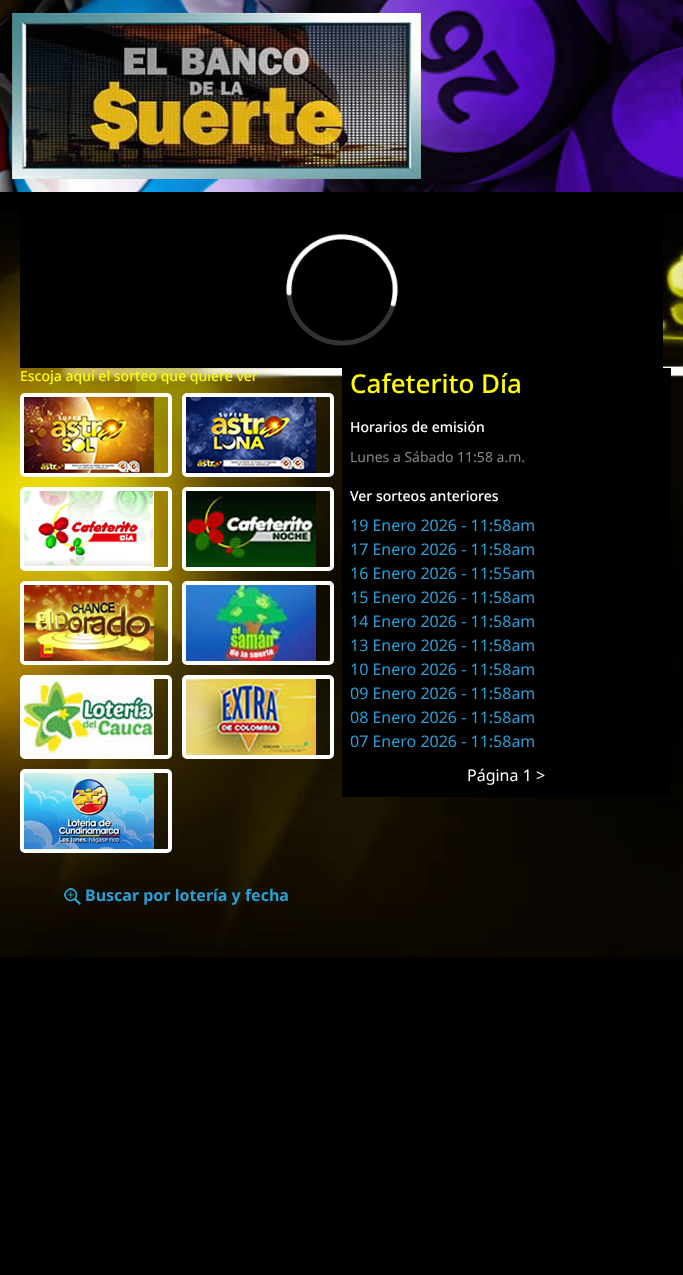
<!DOCTYPE html>
<meta charset="utf-8">
<style>body { margin: 0 } canvas { display: block }</style>
<canvas id="canvas" width="683" height="1275"></canvas>
<script type="module">
  const canvas = document.getElementById("canvas");
  const g = canvas.getContext("2d");
  g.miterLimit = 4;
  g.fontKerning = "normal";
  function drawText(s, x, y, [font, color]) {
    g.font = font;
    g.fillStyle = color;
    g.fillText(s, x, y);
  }
  function fillBox(x, y, w, h, color) {
    g.fillStyle = color;
    g.fillRect(x, y, w, h);
  }
  async function drawPicture(src, x, y, w, h) {
    const img = new Image();
    img.src = src;
    await img.decode();
    g.drawImage(img, x, y, w, h);
  }

  const s1 = ["500 14px Noto Sans", "#FFFE00"];
  const s2 = ["bold 16px Noto Sans", "#2A9FD6"];
  const s3 = ["500 26px Noto Sans", "#FFFE00"];
  const s4 = ["500 14px Noto Sans", "#FFFFFF"];
  const s5 = ["14px Noto Sans", "#888888"];
  const s6 = ["16px Noto Sans", "#2A9FD6"];
  const s7 = ["16px Noto Sans", "#FFFFFF"];

  fillBox(0, 0, 683, 1275, "#000000");
  await drawPicture("pic1.png", 0, 0, 683, 192);
  await drawPicture("pic2.png", 12, 13, 409, 166);
  await drawPicture("pic3.png", 0, 212, 683, 745);
  await drawPicture("pic4.png", 20, 212, 643, 156);
  drawText("Escoja aquí el sorteo que quiere ver", 20, 381, s1);
  g.beginPath();
  g.roundRect(22, 395, 148, 80, 3);
  g.strokeStyle = "#FFFFFF";
  g.lineWidth = 4;
  g.stroke();
  await drawPicture("pic5.png", 24, 397, 130, 76);
  g.beginPath();
  g.roundRect(184, 395, 148, 80, 3);
  g.stroke();
  await drawPicture("pic6.png", 186, 397, 130, 76);
  g.beginPath();
  g.roundRect(22, 489, 148, 80, 3);
  g.stroke();
  await drawPicture("pic7.png", 24, 491, 130, 76);
  g.beginPath();
  g.roundRect(184, 489, 148, 80, 3);
  g.stroke();
  await drawPicture("pic8.png", 186, 491, 130, 76);
  g.beginPath();
  g.roundRect(22, 583, 148, 80, 3);
  g.stroke();
  await drawPicture("pic9.png", 24, 585, 130, 76);
  g.beginPath();
  g.roundRect(184, 583, 148, 80, 3);
  g.stroke();
  await drawPicture("pic10.png", 186, 585, 130, 76);
  g.beginPath();
  g.roundRect(22, 677, 148, 80, 3);
  g.stroke();
  await drawPicture("pic11.png", 24, 679, 130, 76);
  g.beginPath();
  g.roundRect(184, 677, 148, 80, 3);
  g.stroke();
  await drawPicture("pic12.png", 186, 679, 130, 76);
  g.beginPath();
  g.roundRect(22, 771, 148, 80, 3);
  g.stroke();
  await drawPicture("pic13.png", 24, 773, 130, 76);
  await drawPicture("pic14.png", 64, 888, 17, 17);
  drawText("Buscar por lotería y fecha", 85, 901, s2);
  fillBox(342, 368, 329, 429, "#000000");
  drawText("Cafeterito Día", 350, 393, s3);
  drawText("Horarios de emisión", 350, 432, s4);
  drawText("Lunes a Sábado 11:58 a.m.", 350, 462, s5);
  drawText("Ver sorteos anteriores", 350, 501, s4);
  drawText("19 Enero 2026 - 11:58am", 350, 531, s6);
  drawText("17 Enero 2026 - 11:58am", 350, 555, s6);
  drawText("16 Enero 2026 - 11:55am", 350, 579, s6);
  drawText("15 Enero 2026 - 11:58am", 350, 603, s6);
  drawText("14 Enero 2026 - 11:58am", 350, 627, s6);
  drawText("13 Enero 2026 - 11:58am", 350, 651, s6);
  drawText("10 Enero 2026 - 11:58am", 350, 675, s6);
  drawText("09 Enero 2026 - 11:58am", 350, 699, s6);
  drawText("08 Enero 2026 - 11:58am", 350, 723, s6);
  drawText("07 Enero 2026 - 11:58am", 350, 747, s6);
  drawText("Página 1 >", 467, 781, s7);
</script>
